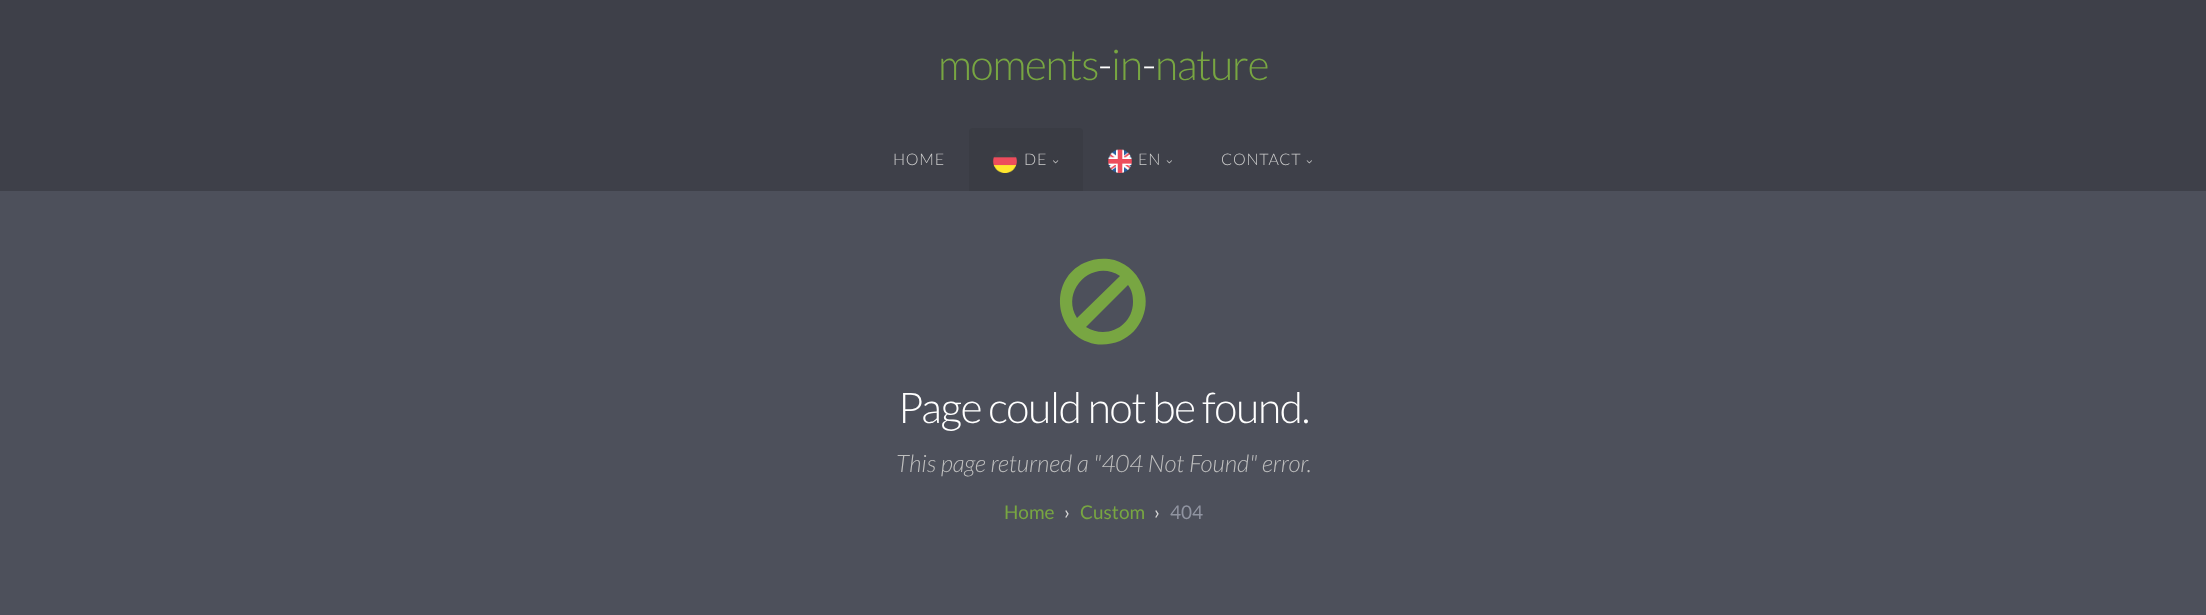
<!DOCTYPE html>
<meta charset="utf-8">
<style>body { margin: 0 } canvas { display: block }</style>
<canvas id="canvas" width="2206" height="615"></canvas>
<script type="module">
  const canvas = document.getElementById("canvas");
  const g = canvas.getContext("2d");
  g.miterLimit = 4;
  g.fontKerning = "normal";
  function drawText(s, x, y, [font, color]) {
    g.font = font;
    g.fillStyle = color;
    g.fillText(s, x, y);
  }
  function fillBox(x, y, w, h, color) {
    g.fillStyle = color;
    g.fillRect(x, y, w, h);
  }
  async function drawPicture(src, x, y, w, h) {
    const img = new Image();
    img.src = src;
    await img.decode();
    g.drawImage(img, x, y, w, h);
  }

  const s1 = ["300 42.5px Lato", "#78A642"];
  const s2 = ["300 42.5px Lato", "#FFFFFF"];
  const s3 = ["300 16px Lato", "#CCCCCC"];
  const s4 = ["italic 300 24px Lato", "#BFBFBF"];
  const s5 = ["19px Lato", "#78A642"];
  const s6 = ["19px Lato", "#D9D9D9"];
  const s7 = ["19px Lato", "#9094A1"];

  fillBox(0, 0, 2206, 615, "#4D505B");
  fillBox(0, 0, 2206, 191, "#3E4049");
  g.letterSpacing = "-1.2px";
  drawText("moments", 938, 80, s1);
  drawText("-", 1098, 80, s2);
  drawText("in", 1111, 80, s1);
  drawText("-", 1142, 80, s2);
  drawText("nature", 1155, 80, s1);
  g.letterSpacing = "0.75px";
  drawText("HOME", 893, 165, s3);
  g.fillStyle = "#3A3C44";
  g.beginPath();
  g.roundRect(969, 128, 114, 63, [4, 4, 0, 0]);
  g.fill();
  await drawPicture("pic1.png", 992, 150, 25, 23);
  drawText("DE", 1024, 165, s3);
  await drawPicture("pic2.png", 1053, 160, 6, 4);
  await drawPicture("pic3.png", 1108, 149, 24, 24);
  drawText("EN", 1138, 165, s3);
  await drawPicture("pic4.png", 1166, 160, 6, 4);
  drawText("CONTACT", 1221, 165, s3);
  await drawPicture("pic4.png", 1306, 160, 6, 4);
  g.fillStyle = "#78A642";
  g.beginPath();
  g.moveTo(1133, 302);
  g.bezierCurveTo(1133, 296, 1132, 290, 1128, 285);
  g.lineTo(1086, 327);
  g.bezierCurveTo(1107, 340, 1133, 326, 1133, 302);
  g.closePath();
  g.moveTo(1077, 318);
  g.lineTo(1120, 276);
  g.bezierCurveTo(1092, 258, 1060, 291, 1077, 318);
  g.closePath();
  g.moveTo(1142, 285);
  g.bezierCurveTo(1152, 306, 1141, 332, 1120, 341);
  g.bezierCurveTo(1110, 345, 1098, 346, 1088, 342);
  g.bezierCurveTo(1053, 329, 1050, 279, 1084, 263);
  g.bezierCurveTo(1092, 259, 1101, 258, 1109, 259);
  g.bezierCurveTo(1124, 261, 1136, 271, 1142, 285);
  g.closePath();
  g.fill();
  g.letterSpacing = "-1.2px";
  drawText("Page could not be found.", 898, 423, s2);
  g.letterSpacing = "0px";
  drawText("This page returned a \"404 Not Found\" error.", 896, 472, s4);
  drawText("Home", 1004, 519, s5);
  drawText("›", 1064, 519, s6);
  drawText("Custom", 1080, 519, s5);
  drawText("›", 1154, 519, s6);
  drawText("404", 1170, 519, s7);
</script>
